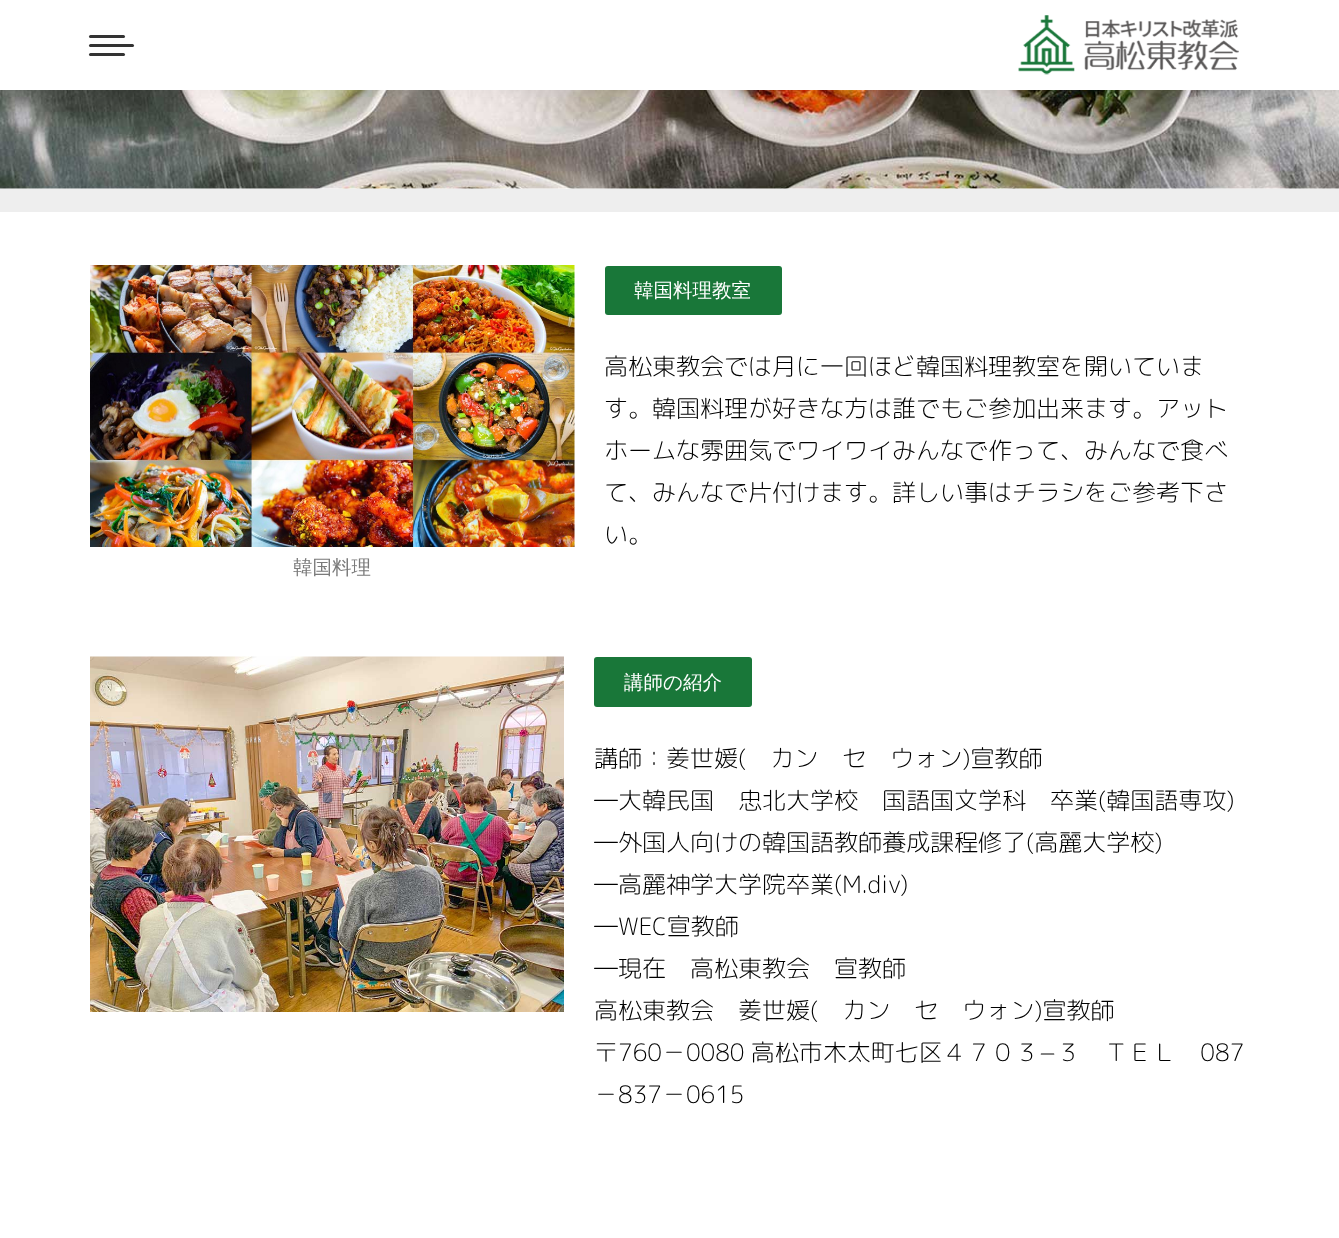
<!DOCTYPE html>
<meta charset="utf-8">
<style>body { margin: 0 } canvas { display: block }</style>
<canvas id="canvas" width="1339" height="1238"></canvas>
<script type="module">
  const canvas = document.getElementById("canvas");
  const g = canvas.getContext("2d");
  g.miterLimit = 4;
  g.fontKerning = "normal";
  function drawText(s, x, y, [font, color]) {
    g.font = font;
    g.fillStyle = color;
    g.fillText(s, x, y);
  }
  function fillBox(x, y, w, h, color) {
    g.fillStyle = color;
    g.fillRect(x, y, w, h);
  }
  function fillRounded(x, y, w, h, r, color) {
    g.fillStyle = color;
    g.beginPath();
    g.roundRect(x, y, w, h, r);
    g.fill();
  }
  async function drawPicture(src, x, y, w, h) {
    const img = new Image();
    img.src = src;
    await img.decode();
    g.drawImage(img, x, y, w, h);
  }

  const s1 = ["500 19.5px WenQuanYi Zen Hei", "#FFFFFF"];
  const s2 = ["300 24px 'Rounded Mplus 1c'", "#000000"];
  const s3 = ["500 19.5px WenQuanYi Zen Hei", "#7A7A7A"];

  fillBox(0, 0, 1339, 1238, "#FFFFFF");
  await drawPicture("pic2.png", 0, 90, 1339, 99);
  g.fillStyle = "rgba(0, 0, 0, 0.07)";
  g.filter = "blur(11px)";
  g.beginPath();
  g.rect(-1, -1, 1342, 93);
  g.fill();
  g.filter = "none";
  fillBox(0, 0, 1339, 90, "#FFFFFF");
  fillRounded(89, 35, 36, 3, 1.5, "#333333");
  fillRounded(89, 44, 45, 3, 1.5, "#333333");
  fillRounded(89, 53, 36, 3, 1.5, "#333333");
  await drawPicture("pic1.png", 1018, 15, 221, 60);
  fillBox(0, 189, 1339, 23, "#EEEEEE");
  fillRounded(605, 266, 177, 49, 3, "#197739");
  drawText("韓国料理教室", 634, 297, s1);
  drawText("高松東教会では月に一回ほど韓国料理教室を開いていま", 604, 375, s2);
  drawText("す。韓国料理が好きな方は誰でもご参加出来ます。アット", 604, 417, s2);
  drawText("ホームな雰囲気でワイワイみんなで作って、みんなで食べ", 604, 459, s2);
  drawText("て、みんなで片付けます。詳しい事はチラシをご参考下さ", 604, 501, s2);
  drawText("い。", 604, 543, s2);
  await drawPicture("pic3.png", 90, 265, 485, 282);
  drawText("韓国料理", 293, 574, s3);
  await drawPicture("pic4.png", 90, 656, 474, 356);
  fillRounded(594, 657, 158, 50, 3, "#197739");
  drawText("講師の紹介", 624, 689, s1);
  drawText("講師：姜世媛(　カン　セ　ウォン)宣教師", 594, 767, s2);
  drawText("―大韓民国　忠北大学校　国語国文学科　卒業(韓国語専攻)", 594, 809, s2);
  drawText("―外国人向けの韓国語教師養成課程修了(高麗大学校)", 594, 851, s2);
  drawText("―高麗神学大学院卒業(M.div)", 594, 893, s2);
  drawText("―WEC宣教師", 594, 935, s2);
  drawText("―現在　高松東教会　宣教師", 594, 977, s2);
  drawText("高松東教会　姜世媛(　カン　セ　ウォン)宣教師", 594, 1019, s2);
  drawText("〒760－0080 高松市木太町七区４７０３−３　ＴＥＬ　087", 594, 1061, s2);
  drawText("－837－0615", 594, 1103, s2);
</script>
